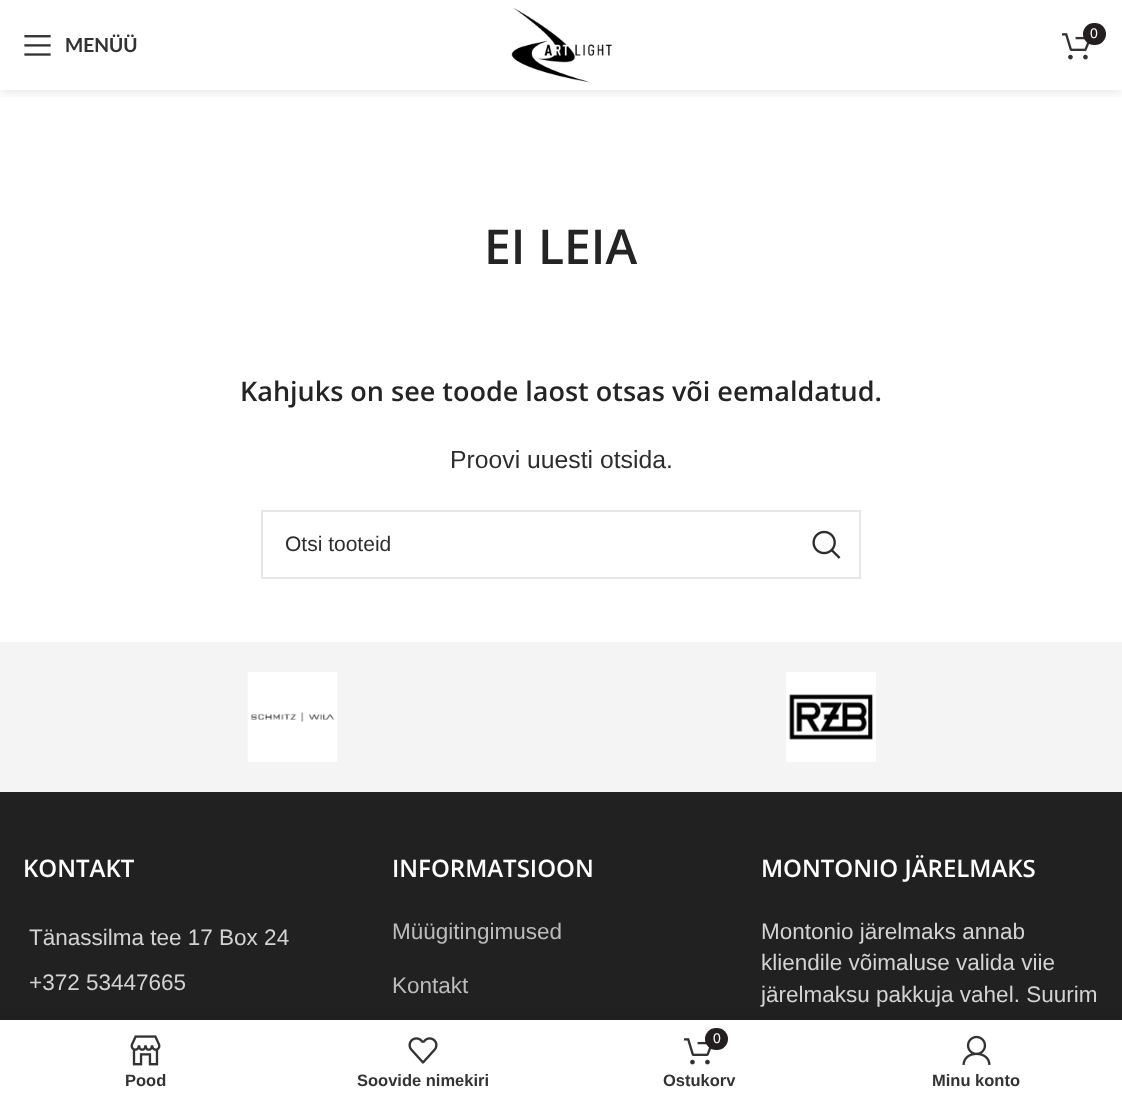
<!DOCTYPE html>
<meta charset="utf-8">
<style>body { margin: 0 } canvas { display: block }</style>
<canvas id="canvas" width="1122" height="1102"></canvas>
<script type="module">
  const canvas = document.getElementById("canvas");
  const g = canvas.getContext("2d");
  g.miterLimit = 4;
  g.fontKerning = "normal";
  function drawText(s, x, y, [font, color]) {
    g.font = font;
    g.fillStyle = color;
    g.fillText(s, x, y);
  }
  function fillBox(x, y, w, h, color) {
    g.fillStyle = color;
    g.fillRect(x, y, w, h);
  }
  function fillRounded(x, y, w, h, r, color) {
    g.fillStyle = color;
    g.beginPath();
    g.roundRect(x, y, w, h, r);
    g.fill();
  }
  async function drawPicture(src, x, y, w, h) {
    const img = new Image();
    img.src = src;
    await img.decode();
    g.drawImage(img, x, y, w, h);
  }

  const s1 = ["bold 19.5px Lato", "#333333"];
  const s2 = ["14px Liberation Sans", "#FFFFFF"];
  const s3 = ["600 48px Open Sans", "#242424"];
  const s4 = ["600 27px Open Sans", "#242424"];
  const s5 = ["24.75px Liberation Sans", "#2D2D2D"];
  const s6 = ["21px Liberation Sans", "#2D2D2D"];
  const s7 = ["600 24px Open Sans", "#FFFFFF"];
  const s8 = ["22.5px Liberation Sans", "#D3D3D3"];
  const s9 = ["22.5px Liberation Sans", "#BCBCBC"];
  const s10 = ["bold 16.5px Liberation Sans", "#333333"];

  fillBox(0, 0, 1122, 1102, "#FFFFFF");
  g.save();
  g.beginPath();
  g.rect(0, 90, 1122, 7);
  g.clip();
  g.fillStyle = "rgba(0, 0, 0, 0.1)";
  g.filter = "blur(6px)";
  g.beginPath();
  g.rect(0, 2, 1122, 90);
  g.fill();
  g.filter = "none";
  g.restore();
  await drawPicture("pic1.png", 24, 35, 27, 21);
  drawText("MENÜÜ", 65, 52, s1);
  await drawPicture("pic2.png", 511, 8, 101, 75);
  await drawPicture("pic3.png", 1062, 33, 28, 27);
  fillRounded(1083, 23, 23, 22, 11, "#231F20");
  drawText("0", 1090, 38, s2);
  drawText("EI LEIA", 484, 264, s3);
  drawText("Kahjuks on see toode laost otsas või eemaldatud.", 240, 401, s4);
  drawText("Proovi uuesti otsida.", 450, 468, s5);
  g.strokeStyle = "#E6E6E6";
  g.lineWidth = 2;
  g.strokeRect(262, 511, 598, 67);
  drawText("Otsi tooteid", 285, 551, s6);
  await drawPicture("pic4.png", 812, 530, 29, 29);
  fillBox(0, 642, 1122, 150, "#F4F4F4");
  await drawPicture("pic5.png", 247, 672, 91, 90);
  await drawPicture("pic6.png", 786, 672, 90, 90);
  fillBox(0, 792, 1122, 228, "#212121");
  drawText("KONTAKT", 23, 877, s7);
  drawText("Tänassilma tee 17 Box 24", 29, 945, s8);
  drawText("+372 53447665", 29, 990, s8);
  drawText("INFORMATSIOON", 392, 877, s7);
  drawText("Müügitingimused", 392, 939, s9);
  drawText("Kontakt", 392, 993, s9);
  drawText("MONTONIO JÄRELMAKS", 761, 877, s7);
  drawText("Montonio järelmaks annab", 761, 939, s8);
  drawText("kliendile võimaluse valida viie", 761, 970, s8);
  drawText("järelmaksu pakkuja vahel. Suurim", 761, 1002, s8);
  g.fillStyle = "rgba(0, 0, 0, 0.12)";
  g.filter = "blur(7px)";
  g.beginPath();
  g.rect(0, 1020, 1122, 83);
  g.fill();
  g.filter = "none";
  fillBox(0, 1020, 1122, 82, "#FFFFFF");
  await drawPicture("pic7.png", 130, 1035, 31, 31);
  drawText("Pood", 125, 1086, s10);
  await drawPicture("pic8.png", 408, 1037, 30, 27);
  drawText("Soovide nimekiri", 357, 1086, s10);
  await drawPicture("pic3.png", 684, 1038, 28, 27);
  fillRounded(705, 1028, 23, 22, 11, "#231F20");
  drawText("0", 713, 1043, s2);
  drawText("Ostukorv", 663, 1086, s10);
  await drawPicture("pic9.png", 962, 1035, 29, 30);
  drawText("Minu konto", 932, 1086, s10);
</script>
